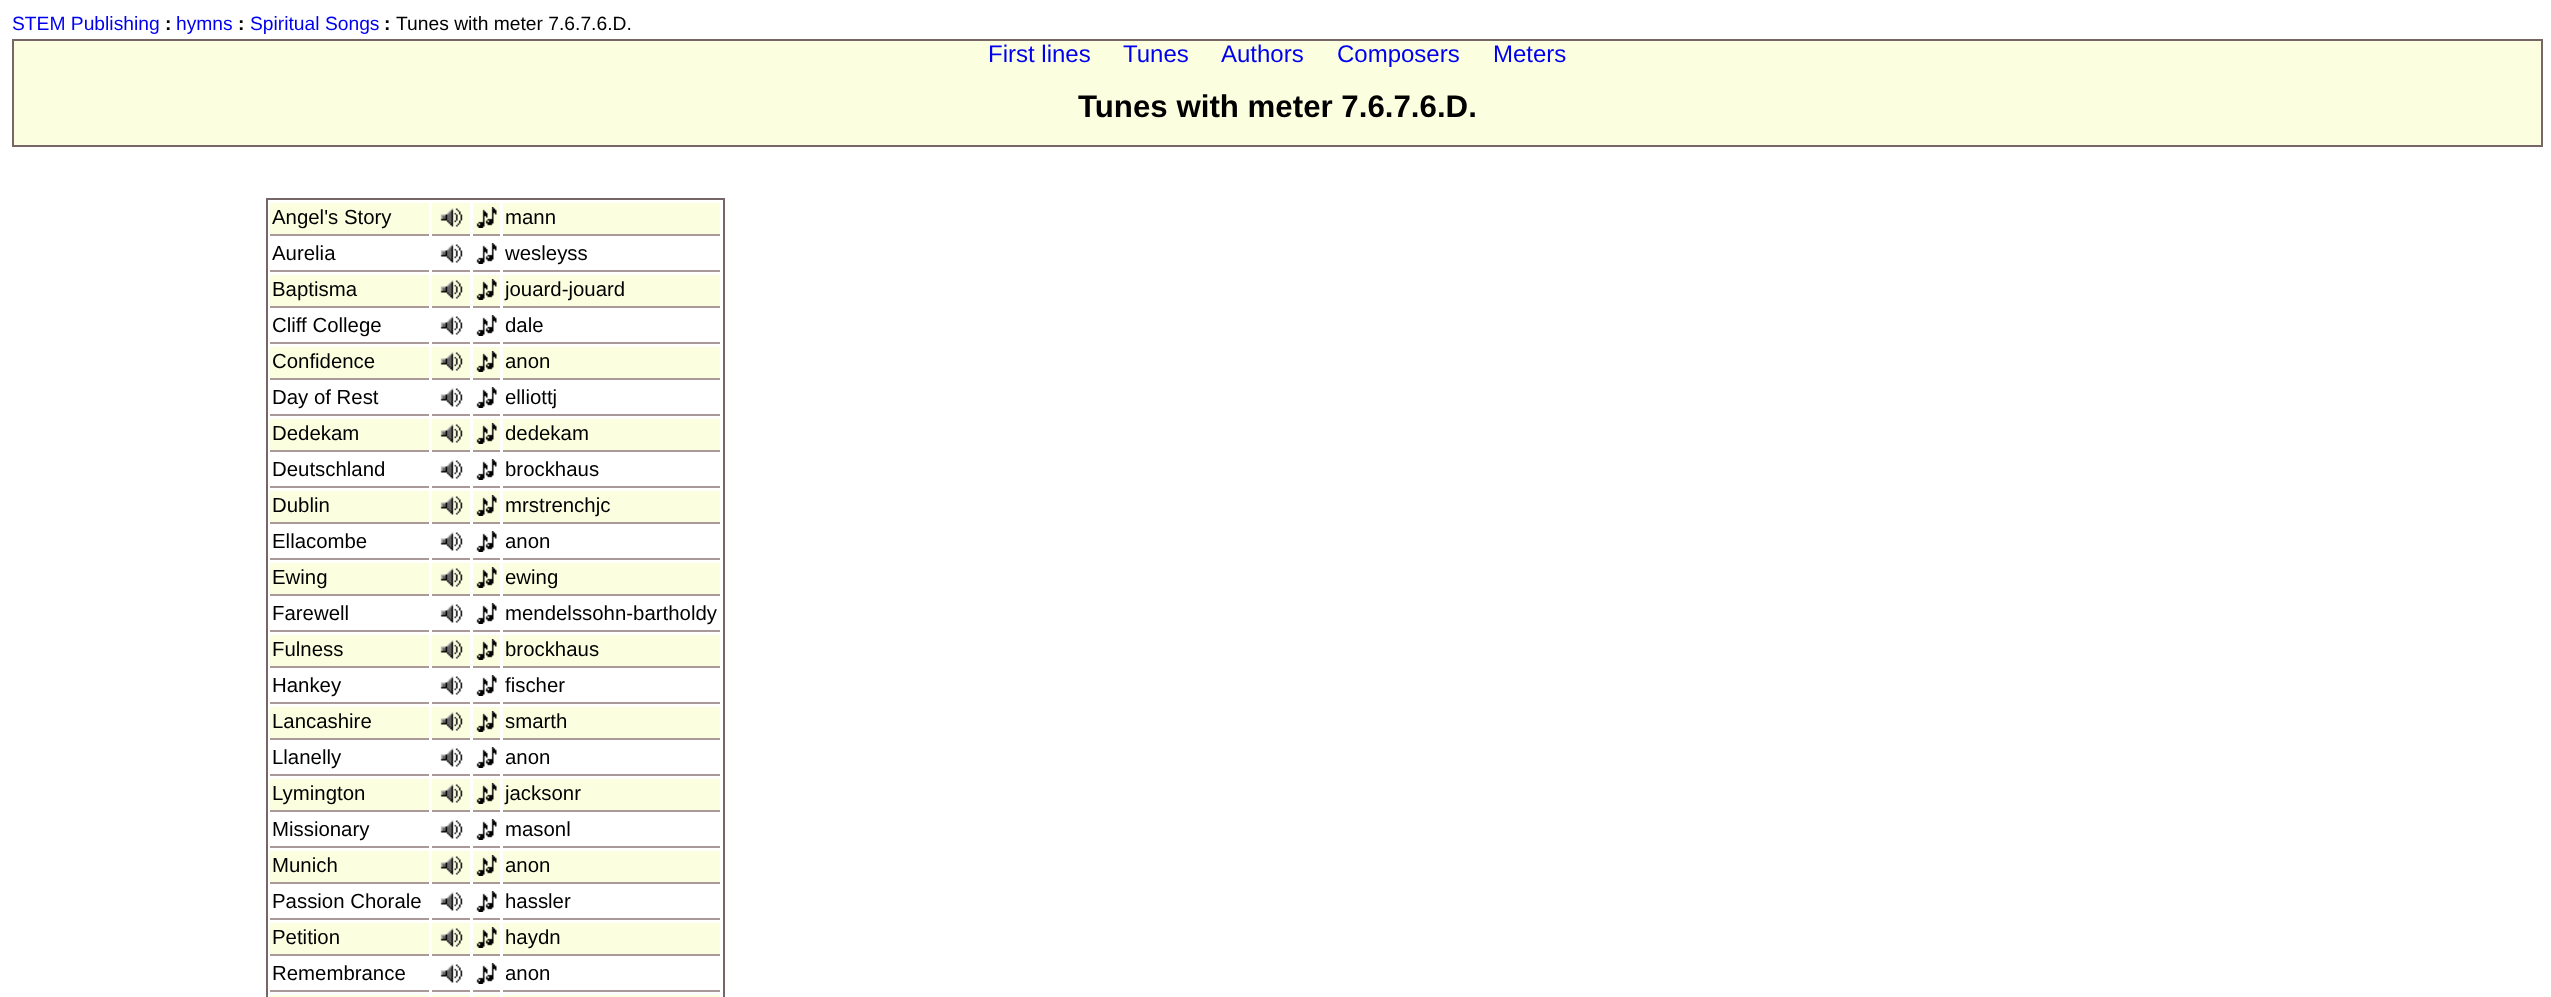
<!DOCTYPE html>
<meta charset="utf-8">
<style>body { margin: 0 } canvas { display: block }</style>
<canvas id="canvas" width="2551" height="997"></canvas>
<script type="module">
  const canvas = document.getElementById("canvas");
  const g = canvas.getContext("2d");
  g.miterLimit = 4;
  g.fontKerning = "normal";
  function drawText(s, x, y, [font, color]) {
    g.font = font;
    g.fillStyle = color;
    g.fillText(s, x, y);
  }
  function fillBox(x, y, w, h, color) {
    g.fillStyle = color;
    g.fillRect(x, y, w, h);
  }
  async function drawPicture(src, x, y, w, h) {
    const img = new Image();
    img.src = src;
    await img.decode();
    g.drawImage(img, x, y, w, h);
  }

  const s1 = ["19.25px Liberation Sans", "#0000EE"];
  const s2 = ["bold 19.25px Liberation Sans", "#000000"];
  const s3 = ["19.25px Liberation Sans", "#000000"];
  const s4 = ["24px Liberation Sans", "#0000EE"];
  const s5 = ["bold 31.25px Liberation Sans", "#000000"];
  const s6 = ["20.4px Liberation Sans", "#000000"];

  fillBox(0, 0, 2551, 997, "#FFFFFF");
  drawText("STEM Publishing", 12, 30, s1);
  drawText(":", 165, 30, s2);
  drawText("hymns", 176, 30, s1);
  drawText(":", 238, 30, s2);
  drawText("Spiritual Songs", 250, 30, s1);
  drawText(":", 384, 30, s2);
  drawText("Tunes with meter 7.6.7.6.D.", 396, 30, s3);
  g.fillStyle = "#FCFFDF";
  g.beginPath();
  g.rect(13, 40, 2529, 106);
  g.fill();
  g.strokeStyle = "#776666";
  g.lineWidth = 2;
  g.stroke();
  drawText("First lines", 988, 62, s4);
  drawText("Tunes", 1123, 62, s4);
  drawText("Authors", 1221, 62, s4);
  drawText("Composers", 1337, 62, s4);
  drawText("Meters", 1493, 62, s4);
  drawText("Tunes with meter 7.6.7.6.D.", 1078, 117, s5);
  g.strokeRect(267, 199, 457, 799);
  fillBox(270, 203, 159, 31, "#FCFFDF");
  fillBox(270, 234, 159, 2, "#AA9999");
  drawText("Angel's Story", 272, 224, s6);
  fillBox(432, 203, 38, 31, "#FCFFDF");
  fillBox(432, 234, 38, 2, "#AA9999");
  await drawPicture("pic1.png", 440, 208, 23, 19);
  fillBox(473, 203, 27, 31, "#FCFFDF");
  fillBox(473, 234, 27, 2, "#AA9999");
  await drawPicture("pic2.png", 476, 207, 21, 21);
  fillBox(503, 203, 217, 31, "#FCFFDF");
  fillBox(503, 234, 217, 2, "#AA9999");
  drawText("mann", 505, 224, s6);
  fillBox(270, 270, 159, 2, "#AA9999");
  drawText("Aurelia", 272, 260, s6);
  fillBox(432, 270, 38, 2, "#AA9999");
  await drawPicture("pic3.png", 440, 244, 23, 19);
  fillBox(473, 270, 27, 2, "#AA9999");
  await drawPicture("pic4.png", 476, 243, 21, 21);
  fillBox(503, 270, 217, 2, "#AA9999");
  drawText("wesleyss", 505, 260, s6);
  fillBox(270, 275, 159, 31, "#FCFFDF");
  fillBox(270, 306, 159, 2, "#AA9999");
  drawText("Baptisma", 272, 296, s6);
  fillBox(432, 275, 38, 31, "#FCFFDF");
  fillBox(432, 306, 38, 2, "#AA9999");
  await drawPicture("pic1.png", 440, 280, 23, 19);
  fillBox(473, 275, 27, 31, "#FCFFDF");
  fillBox(473, 306, 27, 2, "#AA9999");
  await drawPicture("pic2.png", 476, 279, 21, 21);
  fillBox(503, 275, 217, 31, "#FCFFDF");
  fillBox(503, 306, 217, 2, "#AA9999");
  drawText("jouard-jouard", 505, 296, s6);
  fillBox(270, 342, 159, 2, "#AA9999");
  drawText("Cliff College", 272, 332, s6);
  fillBox(432, 342, 38, 2, "#AA9999");
  await drawPicture("pic3.png", 440, 316, 23, 19);
  fillBox(473, 342, 27, 2, "#AA9999");
  await drawPicture("pic4.png", 476, 315, 21, 21);
  fillBox(503, 342, 217, 2, "#AA9999");
  drawText("dale", 505, 332, s6);
  fillBox(270, 347, 159, 31, "#FCFFDF");
  fillBox(270, 378, 159, 2, "#AA9999");
  drawText("Confidence", 272, 368, s6);
  fillBox(432, 347, 38, 31, "#FCFFDF");
  fillBox(432, 378, 38, 2, "#AA9999");
  await drawPicture("pic1.png", 440, 352, 23, 19);
  fillBox(473, 347, 27, 31, "#FCFFDF");
  fillBox(473, 378, 27, 2, "#AA9999");
  await drawPicture("pic2.png", 476, 351, 21, 21);
  fillBox(503, 347, 217, 31, "#FCFFDF");
  fillBox(503, 378, 217, 2, "#AA9999");
  drawText("anon", 505, 368, s6);
  fillBox(270, 414, 159, 2, "#AA9999");
  drawText("Day of Rest", 272, 404, s6);
  fillBox(432, 414, 38, 2, "#AA9999");
  await drawPicture("pic3.png", 440, 388, 23, 19);
  fillBox(473, 414, 27, 2, "#AA9999");
  await drawPicture("pic4.png", 476, 387, 21, 21);
  fillBox(503, 414, 217, 2, "#AA9999");
  drawText("elliottj", 505, 404, s6);
  fillBox(270, 419, 159, 31, "#FCFFDF");
  fillBox(270, 450, 159, 2, "#AA9999");
  drawText("Dedekam", 272, 440, s6);
  fillBox(432, 419, 38, 31, "#FCFFDF");
  fillBox(432, 450, 38, 2, "#AA9999");
  await drawPicture("pic1.png", 440, 424, 23, 19);
  fillBox(473, 419, 27, 31, "#FCFFDF");
  fillBox(473, 450, 27, 2, "#AA9999");
  await drawPicture("pic2.png", 476, 423, 21, 21);
  fillBox(503, 419, 217, 31, "#FCFFDF");
  fillBox(503, 450, 217, 2, "#AA9999");
  drawText("dedekam", 505, 440, s6);
  fillBox(270, 486, 159, 2, "#AA9999");
  drawText("Deutschland", 272, 476, s6);
  fillBox(432, 486, 38, 2, "#AA9999");
  await drawPicture("pic3.png", 440, 460, 23, 19);
  fillBox(473, 486, 27, 2, "#AA9999");
  await drawPicture("pic4.png", 476, 459, 21, 21);
  fillBox(503, 486, 217, 2, "#AA9999");
  drawText("brockhaus", 505, 476, s6);
  fillBox(270, 491, 159, 31, "#FCFFDF");
  fillBox(270, 522, 159, 2, "#AA9999");
  drawText("Dublin", 272, 512, s6);
  fillBox(432, 491, 38, 31, "#FCFFDF");
  fillBox(432, 522, 38, 2, "#AA9999");
  await drawPicture("pic1.png", 440, 496, 23, 19);
  fillBox(473, 491, 27, 31, "#FCFFDF");
  fillBox(473, 522, 27, 2, "#AA9999");
  await drawPicture("pic2.png", 476, 495, 21, 21);
  fillBox(503, 491, 217, 31, "#FCFFDF");
  fillBox(503, 522, 217, 2, "#AA9999");
  drawText("mrstrenchjc", 505, 512, s6);
  fillBox(270, 558, 159, 2, "#AA9999");
  drawText("Ellacombe", 272, 548, s6);
  fillBox(432, 558, 38, 2, "#AA9999");
  await drawPicture("pic3.png", 440, 532, 23, 19);
  fillBox(473, 558, 27, 2, "#AA9999");
  await drawPicture("pic4.png", 476, 531, 21, 21);
  fillBox(503, 558, 217, 2, "#AA9999");
  drawText("anon", 505, 548, s6);
  fillBox(270, 563, 159, 31, "#FCFFDF");
  fillBox(270, 594, 159, 2, "#AA9999");
  drawText("Ewing", 272, 584, s6);
  fillBox(432, 563, 38, 31, "#FCFFDF");
  fillBox(432, 594, 38, 2, "#AA9999");
  await drawPicture("pic1.png", 440, 568, 23, 19);
  fillBox(473, 563, 27, 31, "#FCFFDF");
  fillBox(473, 594, 27, 2, "#AA9999");
  await drawPicture("pic2.png", 476, 567, 21, 21);
  fillBox(503, 563, 217, 31, "#FCFFDF");
  fillBox(503, 594, 217, 2, "#AA9999");
  drawText("ewing", 505, 584, s6);
  fillBox(270, 630, 159, 2, "#AA9999");
  drawText("Farewell", 272, 620, s6);
  fillBox(432, 630, 38, 2, "#AA9999");
  await drawPicture("pic3.png", 440, 604, 23, 19);
  fillBox(473, 630, 27, 2, "#AA9999");
  await drawPicture("pic4.png", 476, 603, 21, 21);
  fillBox(503, 630, 217, 2, "#AA9999");
  drawText("mendelssohn-bartholdy", 505, 620, s6);
  fillBox(270, 635, 159, 31, "#FCFFDF");
  fillBox(270, 666, 159, 2, "#AA9999");
  drawText("Fulness", 272, 656, s6);
  fillBox(432, 635, 38, 31, "#FCFFDF");
  fillBox(432, 666, 38, 2, "#AA9999");
  await drawPicture("pic1.png", 440, 640, 23, 19);
  fillBox(473, 635, 27, 31, "#FCFFDF");
  fillBox(473, 666, 27, 2, "#AA9999");
  await drawPicture("pic2.png", 476, 639, 21, 21);
  fillBox(503, 635, 217, 31, "#FCFFDF");
  fillBox(503, 666, 217, 2, "#AA9999");
  drawText("brockhaus", 505, 656, s6);
  fillBox(270, 702, 159, 2, "#AA9999");
  drawText("Hankey", 272, 692, s6);
  fillBox(432, 702, 38, 2, "#AA9999");
  await drawPicture("pic3.png", 440, 676, 23, 19);
  fillBox(473, 702, 27, 2, "#AA9999");
  await drawPicture("pic4.png", 476, 675, 21, 21);
  fillBox(503, 702, 217, 2, "#AA9999");
  drawText("fischer", 505, 692, s6);
  fillBox(270, 707, 159, 31, "#FCFFDF");
  fillBox(270, 738, 159, 2, "#AA9999");
  drawText("Lancashire", 272, 728, s6);
  fillBox(432, 707, 38, 31, "#FCFFDF");
  fillBox(432, 738, 38, 2, "#AA9999");
  await drawPicture("pic1.png", 440, 712, 23, 19);
  fillBox(473, 707, 27, 31, "#FCFFDF");
  fillBox(473, 738, 27, 2, "#AA9999");
  await drawPicture("pic2.png", 476, 711, 21, 21);
  fillBox(503, 707, 217, 31, "#FCFFDF");
  fillBox(503, 738, 217, 2, "#AA9999");
  drawText("smarth", 505, 728, s6);
  fillBox(270, 774, 159, 2, "#AA9999");
  drawText("Llanelly", 272, 764, s6);
  fillBox(432, 774, 38, 2, "#AA9999");
  await drawPicture("pic3.png", 440, 748, 23, 19);
  fillBox(473, 774, 27, 2, "#AA9999");
  await drawPicture("pic4.png", 476, 747, 21, 21);
  fillBox(503, 774, 217, 2, "#AA9999");
  drawText("anon", 505, 764, s6);
  fillBox(270, 779, 159, 31, "#FCFFDF");
  fillBox(270, 810, 159, 2, "#AA9999");
  drawText("Lymington", 272, 800, s6);
  fillBox(432, 779, 38, 31, "#FCFFDF");
  fillBox(432, 810, 38, 2, "#AA9999");
  await drawPicture("pic1.png", 440, 784, 23, 19);
  fillBox(473, 779, 27, 31, "#FCFFDF");
  fillBox(473, 810, 27, 2, "#AA9999");
  await drawPicture("pic2.png", 476, 783, 21, 21);
  fillBox(503, 779, 217, 31, "#FCFFDF");
  fillBox(503, 810, 217, 2, "#AA9999");
  drawText("jacksonr", 505, 800, s6);
  fillBox(270, 846, 159, 2, "#AA9999");
  drawText("Missionary", 272, 836, s6);
  fillBox(432, 846, 38, 2, "#AA9999");
  await drawPicture("pic3.png", 440, 820, 23, 19);
  fillBox(473, 846, 27, 2, "#AA9999");
  await drawPicture("pic4.png", 476, 819, 21, 21);
  fillBox(503, 846, 217, 2, "#AA9999");
  drawText("masonl", 505, 836, s6);
  fillBox(270, 851, 159, 31, "#FCFFDF");
  fillBox(270, 882, 159, 2, "#AA9999");
  drawText("Munich", 272, 872, s6);
  fillBox(432, 851, 38, 31, "#FCFFDF");
  fillBox(432, 882, 38, 2, "#AA9999");
  await drawPicture("pic1.png", 440, 856, 23, 19);
  fillBox(473, 851, 27, 31, "#FCFFDF");
  fillBox(473, 882, 27, 2, "#AA9999");
  await drawPicture("pic2.png", 476, 855, 21, 21);
  fillBox(503, 851, 217, 31, "#FCFFDF");
  fillBox(503, 882, 217, 2, "#AA9999");
  drawText("anon", 505, 872, s6);
  fillBox(270, 918, 159, 2, "#AA9999");
  drawText("Passion Chorale", 272, 908, s6);
  fillBox(432, 918, 38, 2, "#AA9999");
  await drawPicture("pic3.png", 440, 892, 23, 19);
  fillBox(473, 918, 27, 2, "#AA9999");
  await drawPicture("pic4.png", 476, 891, 21, 21);
  fillBox(503, 918, 217, 2, "#AA9999");
  drawText("hassler", 505, 908, s6);
  fillBox(270, 923, 159, 31, "#FCFFDF");
  fillBox(270, 954, 159, 2, "#AA9999");
  drawText("Petition", 272, 944, s6);
  fillBox(432, 923, 38, 31, "#FCFFDF");
  fillBox(432, 954, 38, 2, "#AA9999");
  await drawPicture("pic1.png", 440, 928, 23, 19);
  fillBox(473, 923, 27, 31, "#FCFFDF");
  fillBox(473, 954, 27, 2, "#AA9999");
  await drawPicture("pic2.png", 476, 927, 21, 21);
  fillBox(503, 923, 217, 31, "#FCFFDF");
  fillBox(503, 954, 217, 2, "#AA9999");
  drawText("haydn", 505, 944, s6);
  fillBox(270, 990, 159, 2, "#AA9999");
  drawText("Remembrance", 272, 980, s6);
  fillBox(432, 990, 38, 2, "#AA9999");
  await drawPicture("pic3.png", 440, 964, 23, 19);
  fillBox(473, 990, 27, 2, "#AA9999");
  await drawPicture("pic4.png", 476, 963, 21, 21);
  fillBox(503, 990, 217, 2, "#AA9999");
  drawText("anon", 505, 980, s6);
  fillBox(270, 995, 159, 2, "#FCFFDF");
  fillBox(432, 995, 38, 2, "#FCFFDF");
  fillBox(473, 995, 27, 2, "#FCFFDF");
  fillBox(503, 995, 217, 2, "#FCFFDF");
</script>
